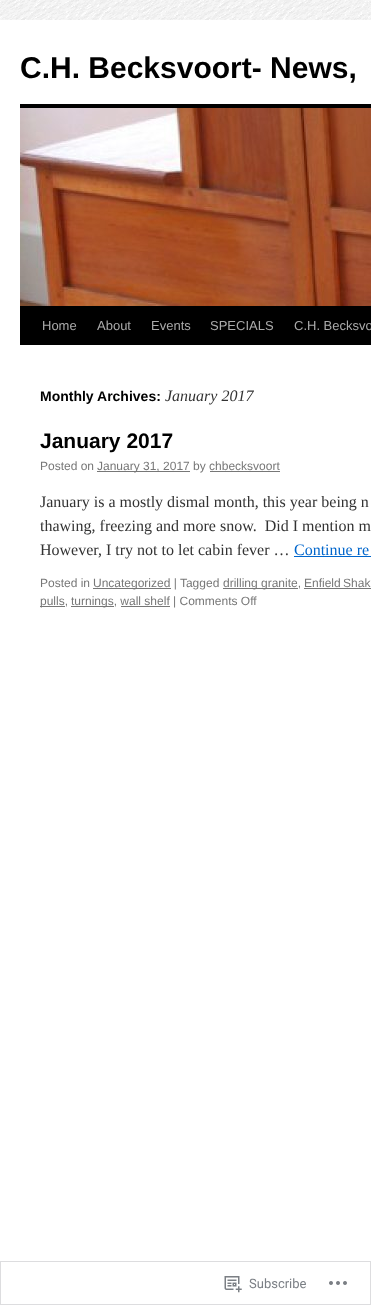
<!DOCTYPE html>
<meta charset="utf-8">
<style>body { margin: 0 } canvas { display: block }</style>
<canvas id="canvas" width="371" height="1305"></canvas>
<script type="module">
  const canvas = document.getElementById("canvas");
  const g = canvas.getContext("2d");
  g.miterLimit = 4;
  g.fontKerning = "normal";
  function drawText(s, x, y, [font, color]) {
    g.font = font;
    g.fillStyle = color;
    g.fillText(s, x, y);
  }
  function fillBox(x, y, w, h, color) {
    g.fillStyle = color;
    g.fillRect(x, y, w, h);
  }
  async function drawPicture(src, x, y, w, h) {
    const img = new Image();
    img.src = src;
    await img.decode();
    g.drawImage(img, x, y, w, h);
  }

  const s1 = ["bold 30px Liberation Sans", "#000000"];
  const s2 = ["13px Liberation Sans", "#AAAAAA"];
  const s3 = ["bold 14px Liberation Sans", "#000000"];
  const s4 = ["italic 16px Liberation Serif", "#333333"];
  const s5 = ["bold 21px Liberation Sans", "#000000"];
  const s6 = ["12px Liberation Sans", "#777777"];
  const s7 = ["16px Liberation Serif", "#333333"];
  const s8 = ["16px Liberation Serif", "#0066CC"];
  const s9 = ["13px Roboto", "#7B7F85"];

  fillBox(0, 0, 371, 1305, "#FFFFFF");
  await drawPicture("pic1.png", 0, 0, 371, 20);
  drawText("C.H. Becksvoort- News,", 20, 78, s1);
  fillBox(20, 104, 351, 4, "#000000");
  fillBox(20, 306, 351, 39, "#000000");
  await drawPicture("pic2.png", 20, 108, 351, 198);
  drawText("Home", 42, 330, s2);
  drawText("About", 97, 330, s2);
  drawText("Events", 151, 330, s2);
  drawText("SPECIALS", 210, 330, s2);
  drawText("C.H. Becksvo", 294, 330, s2);
  drawText("Monthly Archives:", 40, 401, s3);
  drawText("January 2017", 165, 401, s4);
  drawText("January 2017", 40, 448, s5);
  drawText("Posted on", 40, 470, s6);
  fillBox(97, 471, 93, 1, "#777777");
  drawText("January 31, 2017 by chbecksvoort", 97, 470, s6);
  fillBox(210, 471, 70, 1, "#777777");
  drawText("January is a mostly dismal month, this year being n", 40, 507, s7);
  drawText("thawing, freezing and more snow.  Did I mention m", 40, 531, s7);
  drawText("However, I try not to let cabin fever …", 40, 555, s7);
  drawText("Continue re", 294, 555, s8);
  fillBox(294, 556, 77, 1, "#0066CC");
  drawText("Posted in", 40, 587, s6);
  fillBox(93, 588, 78, 1, "#777777");
  drawText("Uncategorized | Tagged", 93, 587, s6);
  fillBox(223, 588, 75, 1, "#777777");
  drawText("drilling granite,", 223, 587, s6);
  g.wordSpacing = "-1px";
  drawText("Enfield Shak", 304, 587, s6);
  fillBox(304, 588, 67, 1, "#777777");
  fillBox(40, 606, 25, 1, "#777777");
  g.wordSpacing = "0px";
  drawText("pulls,", 40, 605, s6);
  fillBox(71, 606, 43, 1, "#777777");
  drawText("turnings, wall shelf | Comments Off", 71, 605, s6);
  fillBox(121, 606, 49, 1, "#777777");
  g.strokeStyle = "#DDDDDF";
  g.strokeRect(0.5, 1261.5, 370, 43);
  await drawPicture("pic3.png", 224, 1276, 18, 17);
  drawText("Subscribe", 249, 1288, s9);
  await drawPicture("pic4.png", 329, 1281, 18, 4);
</script>
